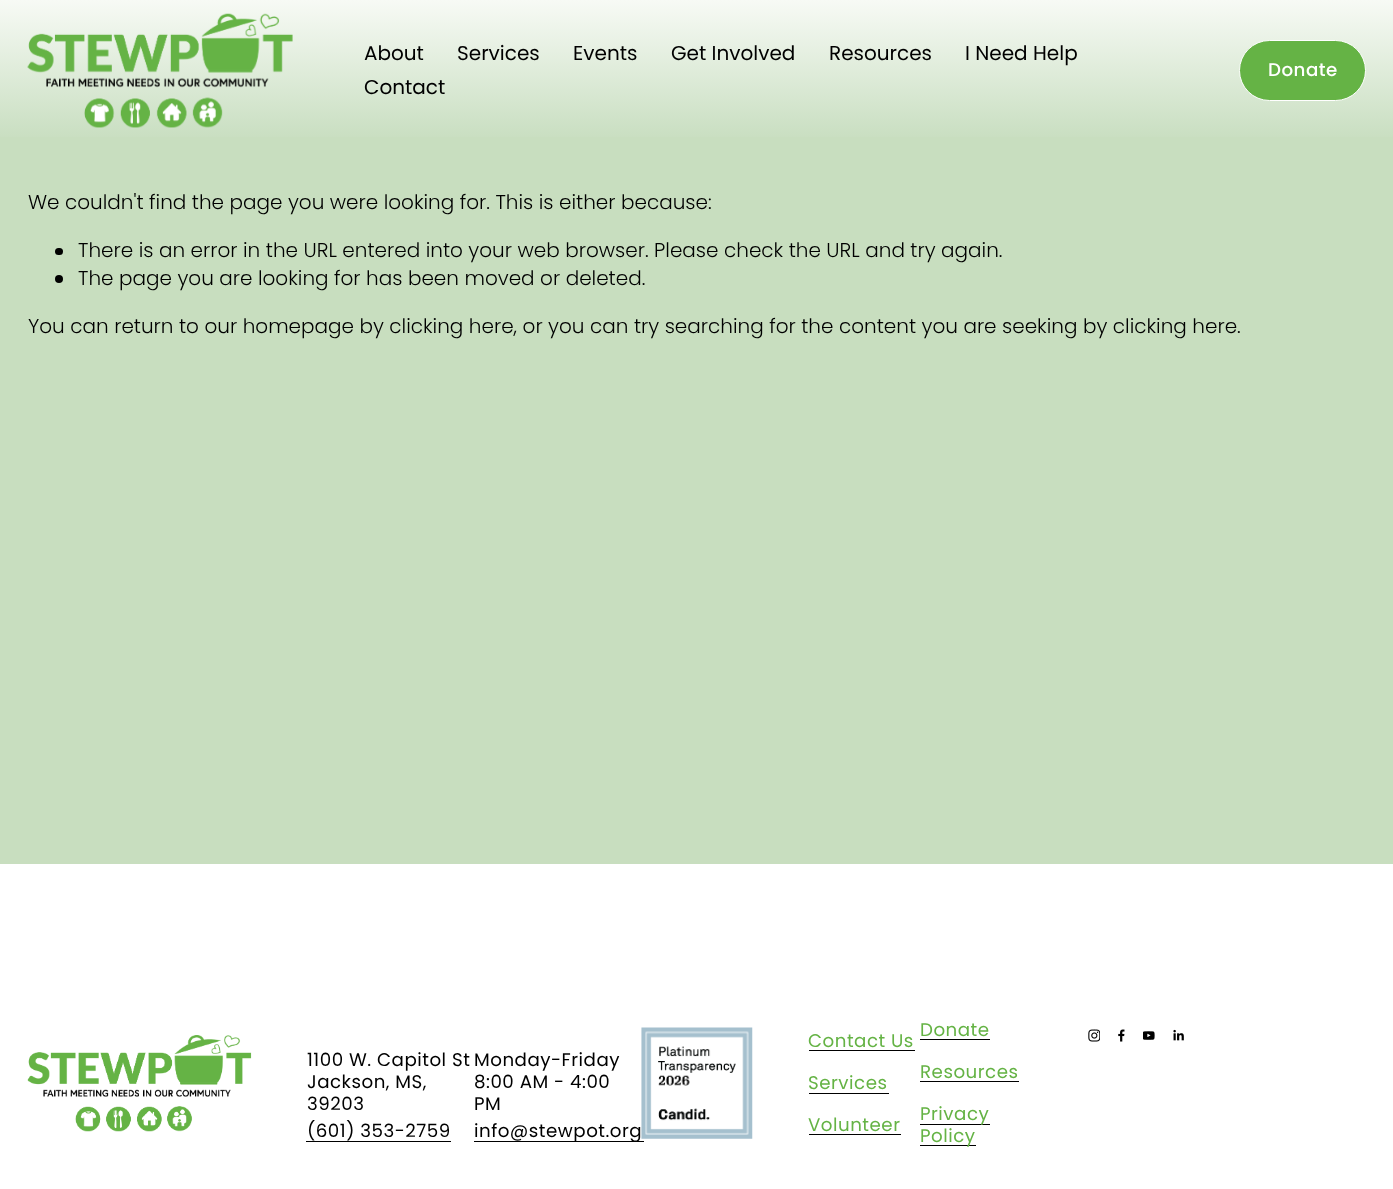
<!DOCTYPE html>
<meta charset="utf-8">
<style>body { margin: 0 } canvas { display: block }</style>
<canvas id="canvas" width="1393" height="1189"></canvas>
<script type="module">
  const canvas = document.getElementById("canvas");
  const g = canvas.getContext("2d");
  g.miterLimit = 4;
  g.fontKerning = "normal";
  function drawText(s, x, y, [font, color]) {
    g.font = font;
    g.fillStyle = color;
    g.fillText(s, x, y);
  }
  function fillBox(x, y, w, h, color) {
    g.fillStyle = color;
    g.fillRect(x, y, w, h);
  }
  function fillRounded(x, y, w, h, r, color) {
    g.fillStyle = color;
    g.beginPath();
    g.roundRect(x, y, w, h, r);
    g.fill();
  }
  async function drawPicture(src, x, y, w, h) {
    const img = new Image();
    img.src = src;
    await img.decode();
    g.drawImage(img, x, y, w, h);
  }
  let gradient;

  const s1 = ["20px Poppins", "#000000"];
  const s2 = ["500 18.25px Poppins", "#FFFFFF"];
  const s3 = ["300 20px Poppins", "#000000"];
  const s4 = ["18.25px Poppins", "#000000"];
  const s5 = ["18.25px Poppins", "#65B345"];

  fillBox(0, 0, 1393, 1189, "#C8DEBF");
  gradient = g.createLinearGradient(697, 0, 697, 141);
  gradient.addColorStop(0, "#F7FAF5");
  gradient.addColorStop(1, "#C8DEC0");
  g.fillStyle = gradient;
  g.fillRect(0, 0, 1393, 137);
  await drawPicture("pic1.png", 27, 13, 266, 115);
  drawText("About", 364, 60, s1);
  drawText("Services", 457, 60, s1);
  drawText("Events", 573, 60, s1);
  drawText("Get Involved", 671, 60, s1);
  drawText("Resources", 829, 60, s1);
  drawText("I Need Help", 965, 60, s1);
  drawText("Contact", 364, 94, s1);
  g.fillStyle = "#65B345";
  g.beginPath();
  g.roundRect(1239.5, 40.5, 126, 60, 30);
  g.fill();
  g.strokeStyle = "#FFFFFF";
  g.stroke();
  g.letterSpacing = "0.5px";
  drawText("Donate", 1268, 76, s2);
  g.letterSpacing = "0px";
  drawText("We couldn't find the page you were looking for. This is either because:", 28, 209, s3);
  fillRounded(55, 248, 8, 7, 3.5, "#000000");
  drawText("There is an error in the URL entered into your web browser. Please check the URL and try again.", 78, 257, s3);
  g.beginPath();
  g.arc(59, 279, 4, 0, Math.PI * 2);
  g.fill();
  drawText("The page you are looking for has been moved or deleted.", 78, 285, s3);
  drawText("You can return to our homepage by clicking here, or you can try searching for the content you are seeking by clicking here.", 28, 333, s3);
  fillBox(0, 864, 1393, 325, "#FFFFFF");
  await drawPicture("pic2.png", 27, 1035, 225, 97);
  g.letterSpacing = "0.5px";
  drawText("1100 W. Capitol St", 307, 1066, s4);
  drawText("Jackson, MS,", 307, 1088, s4);
  drawText("39203", 307, 1110, s4);
  drawText("Monday-Friday", 474, 1066, s4);
  drawText("8:00 AM - 4:00", 474, 1088, s4);
  drawText("PM", 474, 1110, s4);
  fillBox(474, 1141, 170, 1, "#000000");
  drawText("info@stewpot.org", 474, 1137, s4);
  await drawPicture("pic3.png", 641, 1027, 112, 112);
  drawText("Contact Us", 808, 1047, s5);
  fillBox(809, 1050, 106, 1, "#000000");
  drawText("Services", 808, 1089, s5);
  fillBox(809, 1093, 80, 1, "#000000");
  drawText("Volunteer", 808, 1131, s5);
  fillBox(809, 1134, 92, 1, "#000000");
  drawText("Donate", 920, 1036, s5);
  fillBox(920, 1039, 70, 1, "#000000");
  drawText("Resources", 920, 1078, s5);
  fillBox(920, 1081, 99, 1, "#000000");
  fillBox(920, 1124, 70, 1, "#000000");
  drawText("Privacy", 920, 1120, s5);
  fillBox(920, 1145, 56, 1, "#000000");
  drawText("Policy", 920, 1142, s5);
  await drawPicture("pic4.png", 1088, 1029, 12, 13);
  await drawPicture("pic5.png", 1118, 1029, 7, 13);
  await drawPicture("pic6.png", 1143, 1031, 12, 9);
  await drawPicture("pic7.png", 1173, 1029, 11, 12);
  drawText("(601) 353-2759", 307, 1137, s4);
  fillBox(306, 1141, 145, 1, "#000000");
</script>
